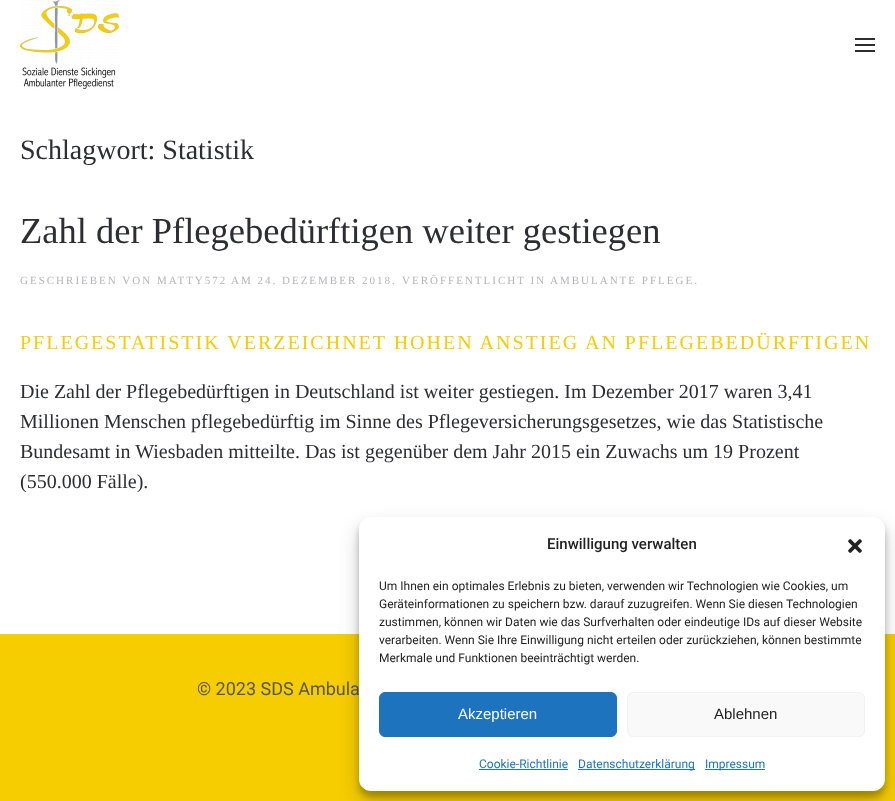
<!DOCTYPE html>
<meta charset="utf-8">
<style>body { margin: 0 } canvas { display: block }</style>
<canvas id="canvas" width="895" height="801"></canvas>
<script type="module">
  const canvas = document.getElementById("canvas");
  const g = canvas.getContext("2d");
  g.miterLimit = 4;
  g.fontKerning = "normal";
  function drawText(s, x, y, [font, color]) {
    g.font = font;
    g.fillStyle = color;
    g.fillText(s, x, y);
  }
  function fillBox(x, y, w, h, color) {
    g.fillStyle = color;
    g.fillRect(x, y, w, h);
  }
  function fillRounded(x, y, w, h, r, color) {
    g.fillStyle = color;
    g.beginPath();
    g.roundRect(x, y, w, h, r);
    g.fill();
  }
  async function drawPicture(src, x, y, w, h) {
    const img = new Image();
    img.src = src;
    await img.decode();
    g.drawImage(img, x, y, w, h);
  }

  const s1 = ["28px Liberation Serif", "#2D2E33"];
  const s2 = ["36.5px Liberation Serif", "#2D2E33"];
  const s3 = ["11px Liberation Serif", "#B4B5BA"];
  const s4 = ["20px Liberation Serif", "#F6CD00"];
  const s5 = ["20px Liberation Serif", "#2D2E33"];
  const s6 = ["18px Roboto", "#565656"];
  const s7 = ["500 15px Roboto", "#222222"];
  const s8 = ["12px Roboto", "#222222"];
  const s9 = ["15px Liberation Sans", "#FFFFFF"];
  const s10 = ["15px Liberation Sans", "#222222"];
  const s11 = ["12px Roboto", "#1E73BE"];

  fillBox(0, 0, 895, 801, "#FFFFFF");
  await drawPicture("pic1.png", 20, 0, 99, 89);
  fillBox(855, 38, 20, 2, "#2D2E33");
  fillBox(855, 44, 20, 2, "#2D2E33");
  fillBox(855, 50, 20, 2, "#2D2E33");
  drawText("Schlagwort: Statistik", 20, 159, s1);
  drawText("Zahl der Pflegebedürftigen weiter gestiegen", 20, 243, s2);
  g.letterSpacing = "2px";
  drawText("GESCHRIEBEN VON MATTY572", 20, 284, s3);
  drawText("AM 24. DEZEMBER 2018.", 231, 284, s3);
  drawText("VERÖFFENTLICHT IN", 402, 284, s3);
  drawText("AMBULANTE PFLEGE.", 550, 284, s3);
  drawText("PFLEGESTATISTIK VERZEICHNET HOHEN ANSTIEG AN PFLEGEBEDÜRFTIGEN", 20, 349, s4);
  g.letterSpacing = "0px";
  drawText("Die Zahl der Pflegebedürftigen in Deutschland ist weiter gestiegen. Im Dezember 2017 waren 3,41", 20, 398, s5);
  drawText("Millionen Menschen pflegebedürftig im Sinne des Pflegeversicherungsgesetzes, wie das Statistische", 20, 428, s5);
  drawText("Bundesamt in Wiesbaden mitteilte. Das ist gegenüber dem Jahr 2015 ein Zuwachs um 19 Prozent", 20, 458, s5);
  drawText("(550.000 Fälle).", 20, 488, s5);
  fillBox(0, 634, 895, 167, "#F6CD00");
  drawText("© 2023 SDS Ambula", 197, 695, s6);
  g.fillStyle = "rgba(0, 0, 0, 0.23)";
  g.filter = "blur(3px)";
  g.beginPath();
  g.roundRect(359, 523, 526, 274, 12);
  g.fill();
  g.filter = "none";
  g.fillStyle = "rgba(0, 0, 0, 0.19)";
  g.filter = "blur(10px)";
  g.beginPath();
  g.roundRect(359, 527, 526, 274, 12);
  g.fill();
  g.filter = "none";
  fillRounded(359, 517, 526, 274, 12, "#FFFFFF");
  drawText("Einwilligung verwalten", 547, 549, s7);
  await drawPicture("pic2.png", 848, 539, 14, 14);
  drawText("Um Ihnen ein optimales Erlebnis zu bieten, verwenden wir Technologien wie Cookies, um", 379, 590, s8);
  drawText("Geräteinformationen zu speichern bzw. darauf zuzugreifen. Wenn Sie diesen Technologien", 379, 608, s8);
  drawText("zustimmen, können wir Daten wie das Surfverhalten oder eindeutige IDs auf dieser Website", 379, 626, s8);
  drawText("verarbeiten. Wenn Sie Ihre Einwilligung nicht erteilen oder zurückziehen, können bestimmte", 379, 644, s8);
  drawText("Merkmale und Funktionen beeinträchtigt werden.", 379, 662, s8);
  g.fillStyle = "#1E73BE";
  g.beginPath();
  g.roundRect(379.5, 692.5, 237, 44, 5.5);
  g.fill();
  g.strokeStyle = "#1E73BE";
  g.stroke();
  drawText("Akzeptieren", 458, 719, s9);
  g.fillStyle = "#F9F9F9";
  g.beginPath();
  g.roundRect(627.5, 692.5, 237, 44, 5.5);
  g.fill();
  g.strokeStyle = "#F2F2F2";
  g.stroke();
  drawText("Ablehnen", 714, 719, s10);
  drawText("Cookie-Richtlinie", 479, 768, s11);
  fillBox(479, 769, 89, 1, "#1E73BE");
  fillBox(578, 769, 117, 1, "#1E73BE");
  drawText("Datenschutzerklärung", 578, 768, s11);
  fillBox(705, 769, 60, 1, "#1E73BE");
  drawText("Impressum", 705, 768, s11);
</script>
